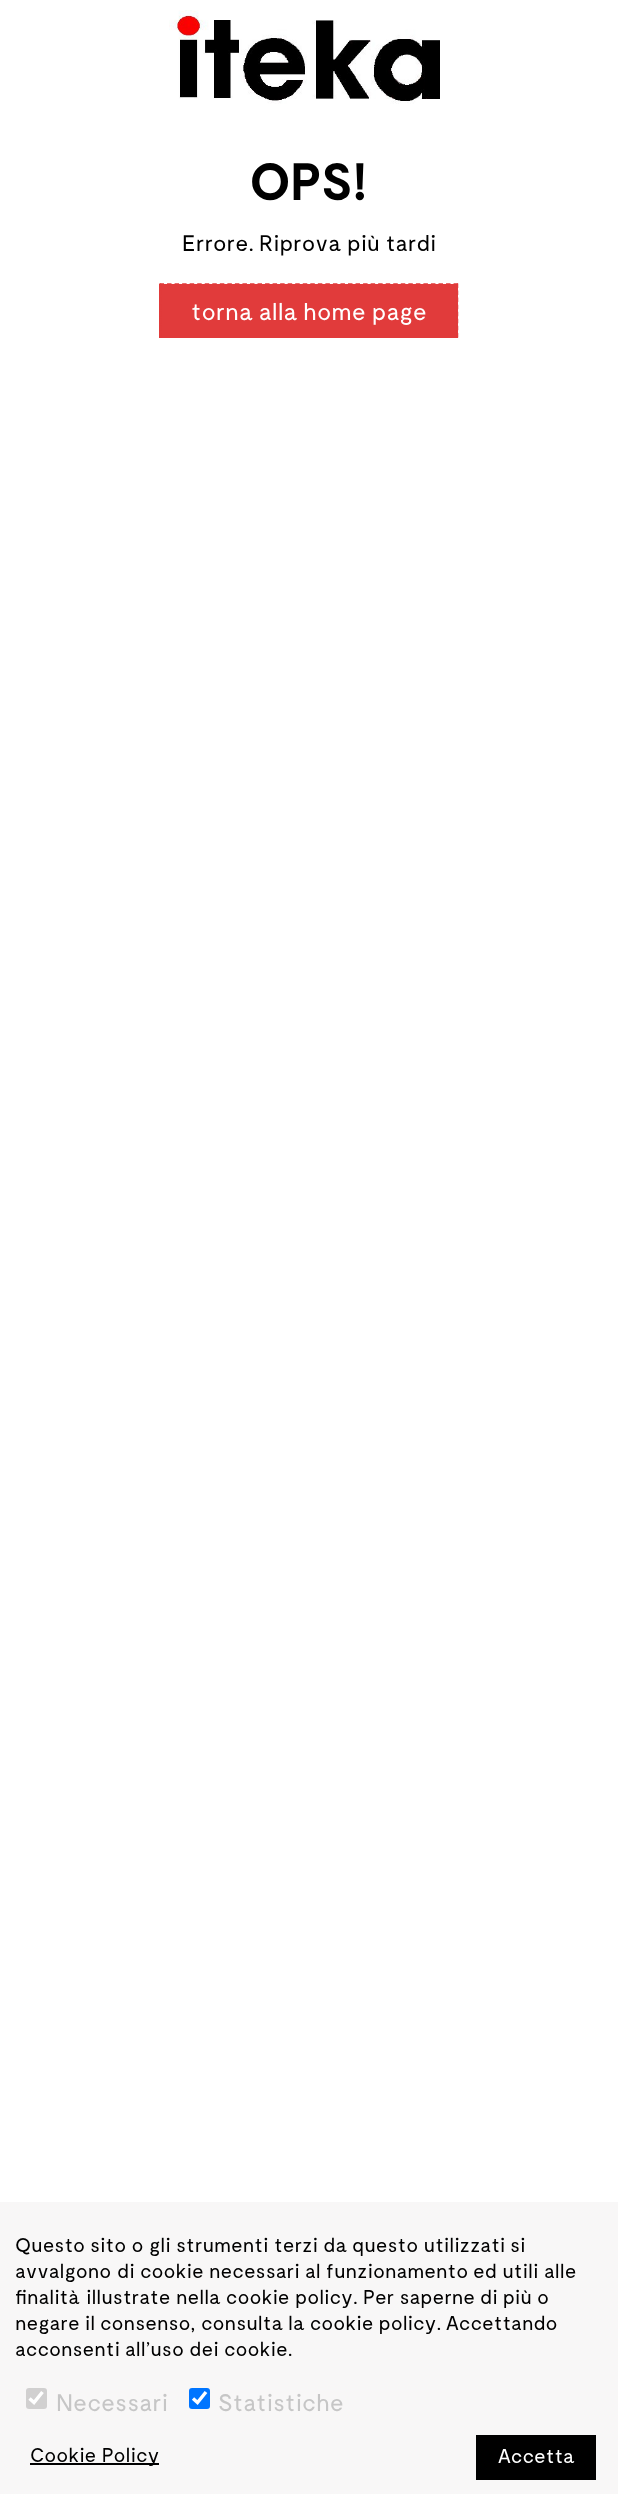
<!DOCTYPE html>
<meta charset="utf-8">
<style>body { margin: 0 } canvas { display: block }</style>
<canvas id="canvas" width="618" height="2494"></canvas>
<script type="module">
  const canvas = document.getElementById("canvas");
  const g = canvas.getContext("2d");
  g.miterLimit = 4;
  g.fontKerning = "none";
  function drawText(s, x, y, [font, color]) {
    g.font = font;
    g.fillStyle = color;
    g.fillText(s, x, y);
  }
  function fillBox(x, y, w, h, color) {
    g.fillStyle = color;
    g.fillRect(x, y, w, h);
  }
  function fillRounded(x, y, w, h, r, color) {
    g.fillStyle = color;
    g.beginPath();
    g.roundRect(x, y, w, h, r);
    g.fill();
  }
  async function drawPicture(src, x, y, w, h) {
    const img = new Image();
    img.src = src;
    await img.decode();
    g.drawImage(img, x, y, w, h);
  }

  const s1 = ["bold 52.5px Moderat", "#000000"];
  const s2 = ["22.5px Moderat", "#000000"];
  const s3 = ["24px Moderat", "#FFFFFF"];
  const s4 = ["20px Moderat", "#000000"];
  const s5 = ["24px Moderat", "#C6C6C6"];
  const s6 = ["20px Moderat", "#FFFFFF"];

  fillBox(0, 0, 618, 2494, "#FFFFFF");
  await drawPicture("pic1.png", 169, 10, 271, 94);
  drawText("OPS!", 250, 200, s1);
  drawText("Errore.", 182, 251, s2);
  drawText("Riprova", 259, 251, s2);
  drawText("più tardi", 347, 251, s2);
  fillBox(159, 284, 299, 54, "#E13B3B");
  g.beginPath();
  g.moveTo(159.5, 284);
  g.lineTo(458, 284);
  g.strokeStyle = "#E13B3B";
  g.lineWidth = 1.5;
  g.setLineDash([4.5, 3.04]);
  g.stroke();
  g.beginPath();
  g.moveTo(457.5, 283.5);
  g.lineTo(457.5, 337.5);
  g.setLineDash([4.5, 2.56]);
  g.stroke();
  g.beginPath();
  g.moveTo(160.5, 283.5);
  g.lineTo(160.5, 337.5);
  g.stroke();
  g.wordSpacing = "-0.5px";
  drawText("torna alla", 191, 320, s3);
  drawText("home page", 303, 320, s3);
  fillBox(0, 2202, 618, 292, "#F8F7F7");
  g.wordSpacing = "0px";
  drawText("Questo", 15, 2252, s4);
  drawText("sito o gli", 90, 2252, s4);
  drawText("strumenti", 176, 2252, s4);
  drawText("terzi da", 274, 2252, s4);
  drawText("questo utilizzati", 352, 2252, s4);
  drawText("si", 510, 2252, s4);
  drawText("avvalgono", 15, 2278, s4);
  drawText("di cookie necessari", 117, 2278, s4);
  drawText("al funzionamento", 305, 2278, s4);
  drawText("ed utili", 473, 2278, s4);
  drawText("alle", 544, 2278, s4);
  g.wordSpacing = "-0.25px";
  drawText("finalità", 15, 2304, s4);
  drawText("illustrate", 86, 2304, s4);
  drawText("nella cookie", 176, 2304, s4);
  drawText("policy.", 295, 2304, s4);
  drawText("Per saperne", 363, 2304, s4);
  drawText("di più o", 480, 2304, s4);
  drawText("negare il", 15, 2330, s4);
  drawText("consenso,", 100, 2330, s4);
  drawText("consulta", 201, 2330, s4);
  drawText("la cookie policy.", 288, 2330, s4);
  drawText("Accettando", 446, 2330, s4);
  g.wordSpacing = "0px";
  drawText("acconsenti", 15, 2356, s4);
  drawText("all’uso dei", 125, 2356, s4);
  drawText("cookie.", 224, 2356, s4);
  fillRounded(26, 2388, 21, 21, 3, "#D1D0D0");
  g.beginPath();
  g.moveTo(29.5, 2398.5);
  g.lineTo(34, 2402.5);
  g.lineTo(42.5, 2392);
  g.strokeStyle = "#FFFFFF";
  g.lineWidth = 3.4;
  g.setLineDash([]);
  g.stroke();
  drawText("Necessari", 56, 2411, s5);
  fillRounded(189, 2388, 21, 21, 3, "#0075FF");
  g.beginPath();
  g.moveTo(193, 2398.5);
  g.lineTo(197.5, 2402.5);
  g.lineTo(206, 2392);
  g.stroke();
  drawText("Statistiche", 218, 2411, s5);
  fillBox(30, 2463, 129, 2, "#000000");
  drawText("Cookie Policy", 30, 2462, s4);
  fillBox(476, 2435, 120, 45, "#000000");
  drawText("Accetta", 498, 2463, s6);
</script>
